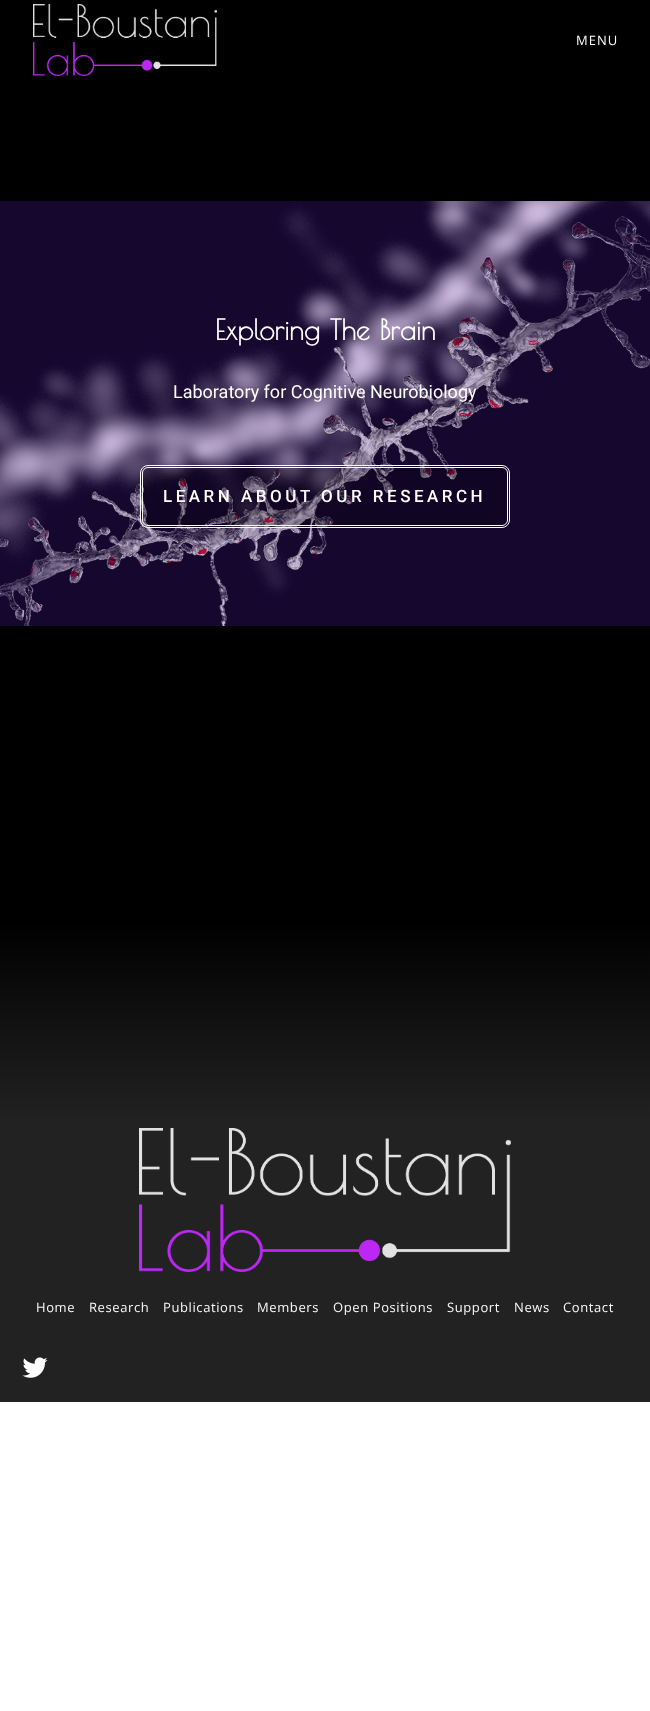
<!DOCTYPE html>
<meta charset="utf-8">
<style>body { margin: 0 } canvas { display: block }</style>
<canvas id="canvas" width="650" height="1711"></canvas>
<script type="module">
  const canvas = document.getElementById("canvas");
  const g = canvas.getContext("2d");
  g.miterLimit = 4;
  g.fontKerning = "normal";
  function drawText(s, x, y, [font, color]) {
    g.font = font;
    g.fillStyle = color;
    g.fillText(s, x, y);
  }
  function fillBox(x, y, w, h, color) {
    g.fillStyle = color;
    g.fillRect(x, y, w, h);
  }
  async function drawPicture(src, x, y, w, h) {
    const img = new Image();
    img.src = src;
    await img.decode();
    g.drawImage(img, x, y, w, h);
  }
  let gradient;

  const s1 = ["13px Open Sans", "#FFFFFF"];
  const s2 = ["bold 28px Poiret One", "#FFFFFF"];
  const s3 = ["18px Roboto", "#FFFFFF"];
  const s4 = ["500 17px Roboto", "#FFFFFF"];
  const s5 = ["13px Open Sans", "#F9F9F9"];

  fillBox(0, 0, 650, 1711, "#FFFFFF");
  fillBox(0, 0, 650, 201, "#000000");
  await drawPicture("pic1.png", 33, 4, 184, 72);
  g.letterSpacing = "1px";
  drawText("MENU", 576, 45, s1);
  await drawPicture("pic2.png", 0, 201, 650, 425);
  g.letterSpacing = "0px";
  drawText("Exploring The Brain", 215, 340, s2);
  drawText("Laboratory for Cognitive Neurobiology", 173, 398, s3);
  g.fillStyle = "rgba(0, 0, 0, 0.2)";
  g.beginPath();
  g.roundRect(140.5, 465.5, 369, 62, 7.5);
  g.fill();
  g.strokeStyle = "#FFFFFF";
  g.stroke();
  g.beginPath();
  g.roundRect(142.5, 467.5, 365, 58, 5.5);
  g.stroke();
  g.letterSpacing = "3.5px";
  drawText("LEARN ABOUT OUR RESEARCH", 163, 502, s4);
  gradient = g.createLinearGradient(325, 626, 325, 1118);
  gradient.addColorStop(0.6, "#000000");
  gradient.addColorStop(1, "#212121");
  g.fillStyle = gradient;
  g.fillRect(0, 626, 650, 492);
  fillBox(0, 1118, 650, 284, "#222222");
  await drawPicture("pic3.png", 139, 1128, 372, 144);
  g.letterSpacing = "0.6px";
  drawText("Home", 36, 1312, s5);
  drawText("Research", 89, 1312, s5);
  drawText("Publications", 163, 1312, s5);
  drawText("Members", 257, 1312, s5);
  drawText("Open Positions", 333, 1312, s5);
  drawText("Support", 447, 1312, s5);
  drawText("News", 514, 1312, s5);
  drawText("Contact", 563, 1312, s5);
  await drawPicture("pic4.png", 22, 1357, 26, 21);
</script>
